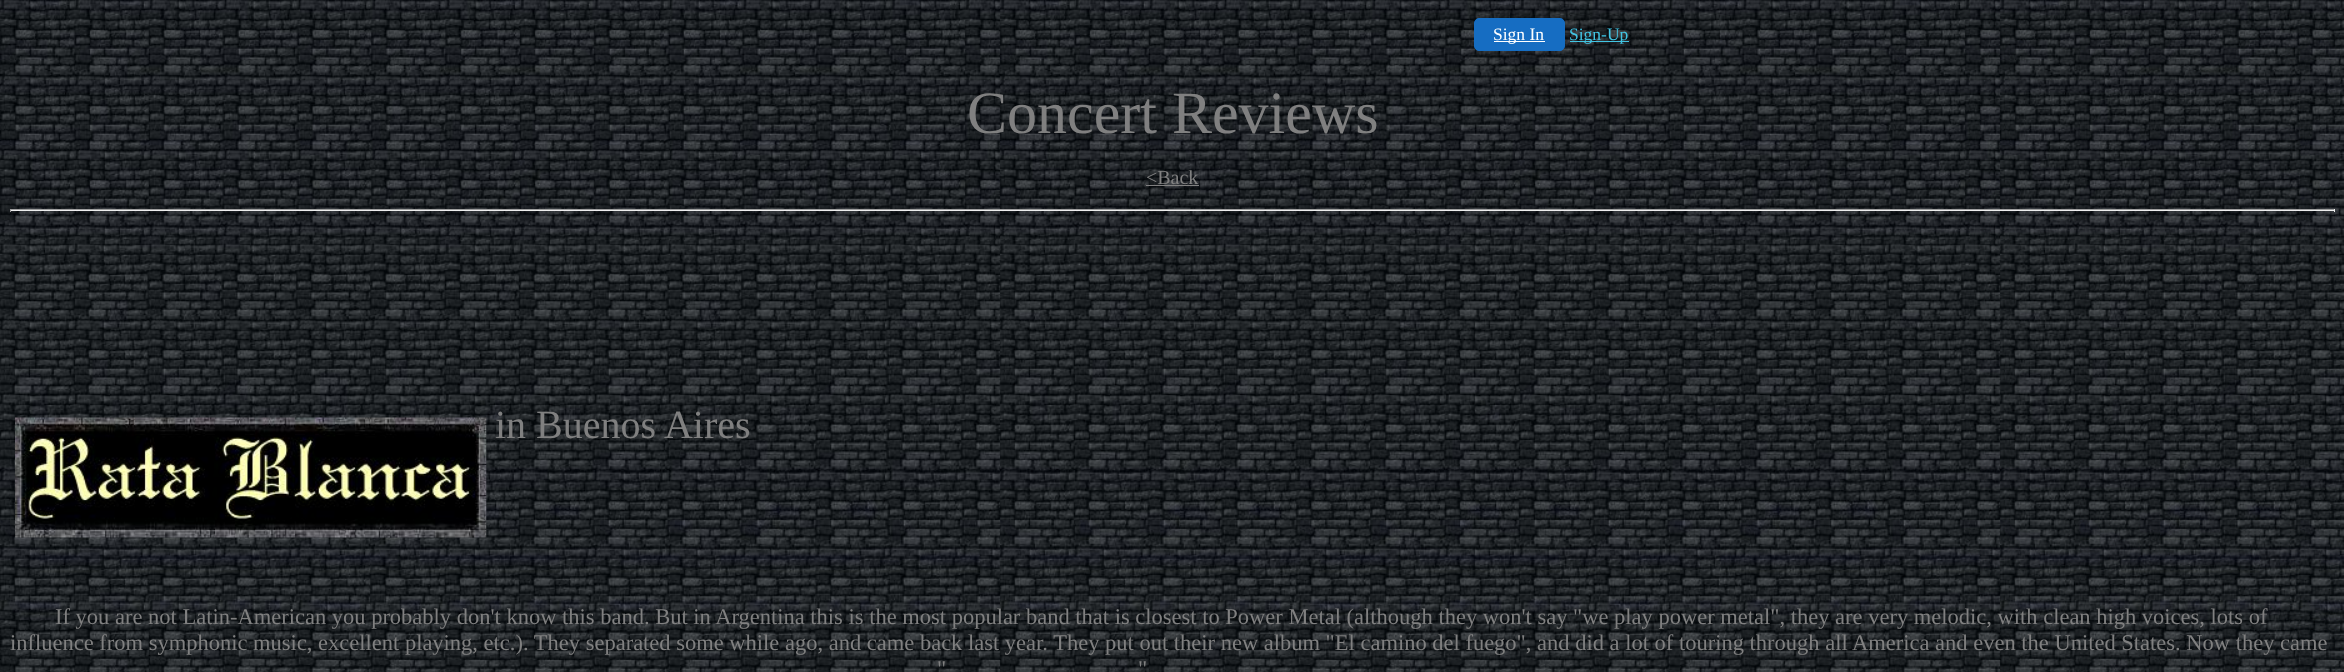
<!DOCTYPE html>
<meta charset="utf-8">
<style>body { margin: 0 } canvas { display: block }</style>
<canvas id="canvas" width="2344" height="672"></canvas>
<script type="module">
  const canvas = document.getElementById("canvas");
  const g = canvas.getContext("2d");
  g.miterLimit = 4;
  g.fontKerning = "normal";
  function drawText(s, x, y, [font, color]) {
    g.font = font;
    g.fillStyle = color;
    g.fillText(s, x, y);
  }
  function fillBox(x, y, w, h, color) {
    g.fillStyle = color;
    g.fillRect(x, y, w, h);
  }
  async function drawPicture(src, x, y, w, h) {
    const img = new Image();
    img.src = src;
    await img.decode();
    g.drawImage(img, x, y, w, h);
  }

  const s1 = ["17.5px Liberation Serif", "#FFFFFF"];
  const s2 = ["17.5px Liberation Serif", "#41C5E4"];
  const s3 = ["60px Liberation Serif", "#808080"];
  const s4 = ["20px Liberation Serif", "#808080"];
  const s5 = ["40px Liberation Serif", "#808080"];
  const s6 = ["22.5px Liberation Serif", "#808080"];

  fillBox(0, 0, 2344, 672, "#FFFFFF");
  await drawPicture("pic1.png", 0, 0, 2344, 672);
  g.fillStyle = "#166DC2";
  g.beginPath();
  g.roundRect(1474.5, 18.5, 90, 32, 4.5);
  g.fill();
  g.strokeStyle = "#166DC2";
  g.stroke();
  fillBox(1494, 41, 51, 1, "#FFFFFF");
  drawText("Sign In", 1493, 40, s1);
  fillBox(1570, 41, 59, 1, "#41C5E4");
  drawText("Sign-Up", 1569, 40, s2);
  drawText("Concert Reviews", 967, 133, s3);
  drawText("<Back", 1146, 184, s4);
  fillBox(1146, 185, 53, 1, "#808080");
  fillBox(10, 209, 2325, 1, "#9F9F9F");
  fillBox(2334, 209, 1, 3, "#EEEEEE");
  fillBox(10, 210, 2325, 1, "#EEEEEE");
  fillBox(10, 209, 1, 3, "#9F9F9F");
  await drawPicture("pic2.png", 15, 417, 472, 121);
  drawText("in Buenos Aires", 495, 438, s5);
  drawText("If you are not Latin-American you probably don't know this band. But in Argentina this is the most popular band that is closest to Power Metal (although they won't say \"we play power metal\", they are very melodic, with clean high voices, lots of", 55, 624, s6);
  drawText("influence from symphonic music, excellent playing, etc.). They separated some while ago, and came back last year. They put out their new album \"El camino del fuego\", and did a lot of touring through all America and even the United States. Now they came", 10, 650, s6);
  drawText("\"", 937, 676, s6);
  drawText("\"", 1138, 676, s6);
</script>
